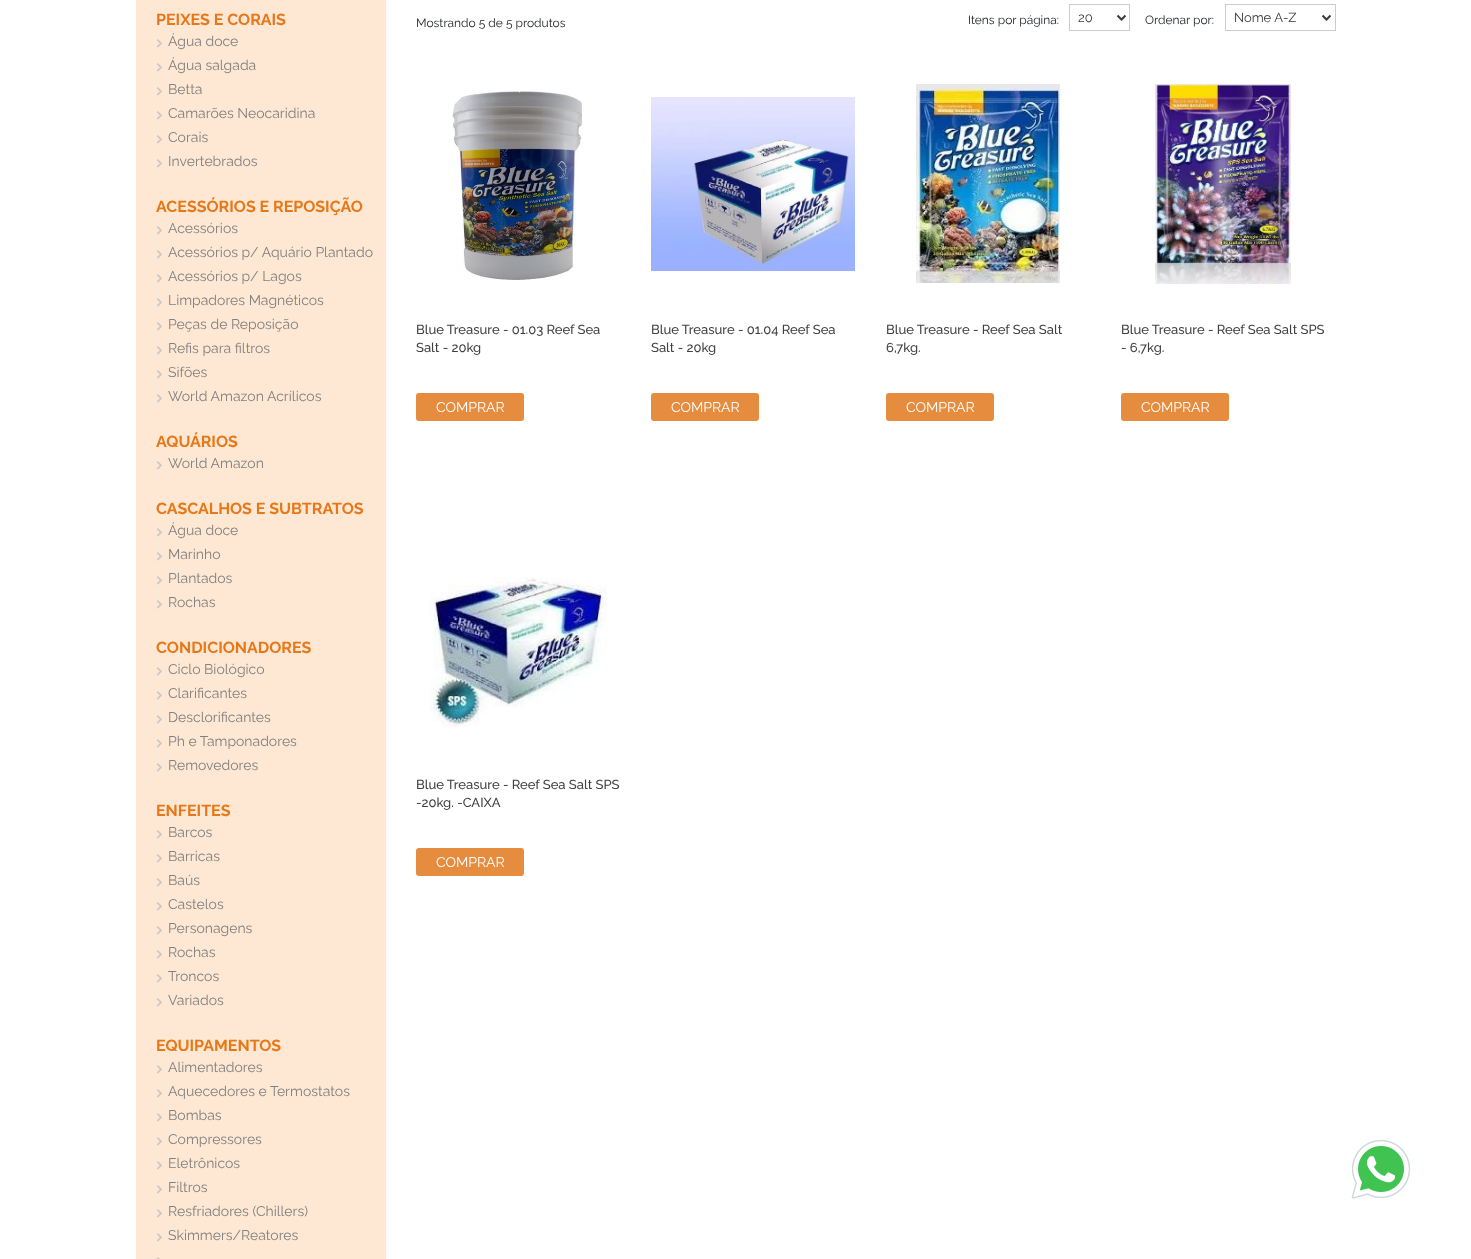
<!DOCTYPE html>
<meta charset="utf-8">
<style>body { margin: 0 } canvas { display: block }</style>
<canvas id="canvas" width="1471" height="1259"></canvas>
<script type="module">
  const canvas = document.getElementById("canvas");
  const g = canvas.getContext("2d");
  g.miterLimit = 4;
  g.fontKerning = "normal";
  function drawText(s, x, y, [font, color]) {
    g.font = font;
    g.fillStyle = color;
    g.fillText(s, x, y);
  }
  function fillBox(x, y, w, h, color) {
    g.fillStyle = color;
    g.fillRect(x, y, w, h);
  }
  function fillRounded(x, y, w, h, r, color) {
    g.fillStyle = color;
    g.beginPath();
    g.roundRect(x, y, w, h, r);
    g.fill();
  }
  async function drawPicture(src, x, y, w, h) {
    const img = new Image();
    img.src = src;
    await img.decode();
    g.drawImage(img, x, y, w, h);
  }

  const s1 = ["bold 16px Raleway", "#E67819"];
  const s2 = ["14px Raleway", "#808080"];
  const s3 = ["12px Raleway", "#212529"];
  const s4 = ["13px Raleway", "#3A3A3A"];
  const s5 = ["500 13px Raleway", "#404041"];
  const s6 = ["14px Raleway", "#FFFFFF"];

  fillBox(0, 0, 1471, 1259, "#FFFFFF");
  fillBox(136, 0, 250, 1259, "#FEE8D3");
  drawText("PEIXES E CORAIS", 156, 25, s1);
  await drawPicture("pic1.png", 156, 39, 6, 9);
  drawText("Água doce", 168, 46, s2);
  await drawPicture("pic1.png", 156, 63, 6, 9);
  drawText("Água salgada", 168, 70, s2);
  await drawPicture("pic1.png", 156, 87, 6, 9);
  drawText("Betta", 168, 94, s2);
  await drawPicture("pic1.png", 156, 111, 6, 9);
  drawText("Camarões Neocaridina", 168, 118, s2);
  await drawPicture("pic1.png", 156, 135, 6, 9);
  drawText("Corais", 168, 142, s2);
  await drawPicture("pic1.png", 156, 159, 6, 9);
  drawText("Invertebrados", 168, 166, s2);
  drawText("ACESSÓRIOS E REPOSIÇÃO", 156, 212, s1);
  await drawPicture("pic1.png", 156, 226, 6, 9);
  drawText("Acessórios", 168, 233, s2);
  await drawPicture("pic1.png", 156, 250, 6, 9);
  drawText("Acessórios p/ Aquário Plantado", 168, 257, s2);
  await drawPicture("pic1.png", 156, 274, 6, 9);
  drawText("Acessórios p/ Lagos", 168, 281, s2);
  await drawPicture("pic1.png", 156, 298, 6, 9);
  drawText("Limpadores Magnéticos", 168, 305, s2);
  await drawPicture("pic1.png", 156, 322, 6, 9);
  drawText("Peças de Reposição", 168, 329, s2);
  await drawPicture("pic1.png", 156, 346, 6, 9);
  drawText("Refis para filtros", 168, 353, s2);
  await drawPicture("pic1.png", 156, 370, 6, 9);
  drawText("Sifões", 168, 377, s2);
  await drawPicture("pic1.png", 156, 394, 6, 9);
  drawText("World Amazon Acrílicos", 168, 401, s2);
  drawText("AQUÁRIOS", 156, 447, s1);
  await drawPicture("pic1.png", 156, 461, 6, 9);
  drawText("World Amazon", 168, 468, s2);
  drawText("CASCALHOS E SUBTRATOS", 156, 514, s1);
  await drawPicture("pic1.png", 156, 528, 6, 9);
  drawText("Água doce", 168, 535, s2);
  await drawPicture("pic1.png", 156, 552, 6, 9);
  drawText("Marinho", 168, 559, s2);
  await drawPicture("pic1.png", 156, 576, 6, 9);
  drawText("Plantados", 168, 583, s2);
  await drawPicture("pic1.png", 156, 600, 6, 9);
  drawText("Rochas", 168, 607, s2);
  drawText("CONDICIONADORES", 156, 653, s1);
  await drawPicture("pic1.png", 156, 667, 6, 9);
  drawText("Ciclo Biológico", 168, 674, s2);
  await drawPicture("pic1.png", 156, 691, 6, 9);
  drawText("Clarificantes", 168, 698, s2);
  await drawPicture("pic1.png", 156, 715, 6, 9);
  drawText("Desclorificantes", 168, 722, s2);
  await drawPicture("pic1.png", 156, 739, 6, 9);
  drawText("Ph e Tamponadores", 168, 746, s2);
  await drawPicture("pic1.png", 156, 763, 6, 9);
  drawText("Removedores", 168, 770, s2);
  drawText("ENFEITES", 156, 816, s1);
  await drawPicture("pic1.png", 156, 830, 6, 9);
  drawText("Barcos", 168, 837, s2);
  await drawPicture("pic1.png", 156, 854, 6, 9);
  drawText("Barricas", 168, 861, s2);
  await drawPicture("pic1.png", 156, 878, 6, 9);
  drawText("Baús", 168, 885, s2);
  await drawPicture("pic1.png", 156, 902, 6, 9);
  drawText("Castelos", 168, 909, s2);
  await drawPicture("pic1.png", 156, 926, 6, 9);
  drawText("Personagens", 168, 933, s2);
  await drawPicture("pic1.png", 156, 950, 6, 9);
  drawText("Rochas", 168, 957, s2);
  await drawPicture("pic1.png", 156, 974, 6, 9);
  drawText("Troncos", 168, 981, s2);
  await drawPicture("pic1.png", 156, 998, 6, 9);
  drawText("Variados", 168, 1005, s2);
  drawText("EQUIPAMENTOS", 156, 1051, s1);
  await drawPicture("pic1.png", 156, 1065, 6, 9);
  drawText("Alimentadores", 168, 1072, s2);
  await drawPicture("pic1.png", 156, 1089, 6, 9);
  drawText("Aquecedores e Termostatos", 168, 1096, s2);
  await drawPicture("pic1.png", 156, 1113, 6, 9);
  drawText("Bombas", 168, 1120, s2);
  await drawPicture("pic1.png", 156, 1137, 6, 9);
  drawText("Compressores", 168, 1144, s2);
  await drawPicture("pic1.png", 156, 1161, 6, 9);
  drawText("Eletrônicos", 168, 1168, s2);
  await drawPicture("pic1.png", 156, 1185, 6, 9);
  drawText("Filtros", 168, 1192, s2);
  await drawPicture("pic1.png", 156, 1209, 6, 9);
  drawText("Resfriadores (Chillers)", 168, 1216, s2);
  await drawPicture("pic1.png", 156, 1233, 6, 9);
  drawText("Skimmers/Reatores", 168, 1240, s2);
  await drawPicture("pic2.png", 156, 1257, 4, 2);
  drawText("Mostrando 5 de 5 produtos", 416, 27, s3);
  drawText("Itens por página:", 968, 24, s3);
  g.strokeStyle = "#CCCCCC";
  g.strokeRect(1069.5, 4.5, 60, 26);
  g.beginPath();
  g.moveTo(1117.5, 15.5);
  g.lineTo(1121.5, 19.5);
  g.lineTo(1125.5, 15.5);
  g.strokeStyle = "#3A3A3A";
  g.lineWidth = 2;
  g.stroke();
  drawText("20", 1078, 22, s4);
  drawText("Ordenar por:", 1145, 24, s3);
  g.strokeStyle = "#CCCCCC";
  g.lineWidth = 1;
  g.strokeRect(1225.5, 4.5, 110, 26);
  g.beginPath();
  g.moveTo(1322.5, 15.5);
  g.lineTo(1326.5, 19.5);
  g.lineTo(1330.5, 15.5);
  g.strokeStyle = "#3A3A3A";
  g.lineWidth = 2;
  g.stroke();
  drawText("Nome A-Z", 1234, 22, s4);
  await drawPicture("pic3.png", 452, 91, 131, 189);
  drawText("Blue Treasure - 01.03 Reef Sea", 416, 334, s5);
  drawText("Salt - 20kg", 416, 352, s5);
  fillRounded(416, 393, 108, 28, 3, "#E68C3E");
  drawText("COMPRAR", 436, 412, s6);
  await drawPicture("pic4.png", 651, 97, 204, 174);
  drawText("Blue Treasure - 01.04 Reef Sea", 651, 334, s5);
  drawText("Salt - 20kg", 651, 352, s5);
  fillRounded(651, 393, 108, 28, 3, "#E68C3E");
  drawText("COMPRAR", 671, 412, s6);
  await drawPicture("pic5.png", 916, 84, 144, 199);
  drawText("Blue Treasure - Reef Sea Salt", 886, 334, s5);
  drawText("6,7kg.", 886, 352, s5);
  fillRounded(886, 393, 108, 28, 3, "#E68C3E");
  drawText("COMPRAR", 906, 412, s6);
  await drawPicture("pic6.png", 1155, 84, 136, 200);
  drawText("Blue Treasure - Reef Sea Salt SPS", 1121, 334, s5);
  drawText("- 6,7kg.", 1121, 352, s5);
  fillRounded(1121, 393, 108, 28, 3, "#E68C3E");
  drawText("COMPRAR", 1141, 412, s6);
  await drawPicture("pic7.png", 430, 577, 177, 150);
  drawText("Blue Treasure - Reef Sea Salt SPS", 416, 789, s5);
  drawText("-20kg. -CAIXA", 416, 807, s5);
  fillRounded(416, 848, 108, 28, 3, "#E68C3E");
  drawText("COMPRAR", 436, 867, s6);
  await drawPicture("pic8.png", 1351, 1139, 60, 60);
</script>
